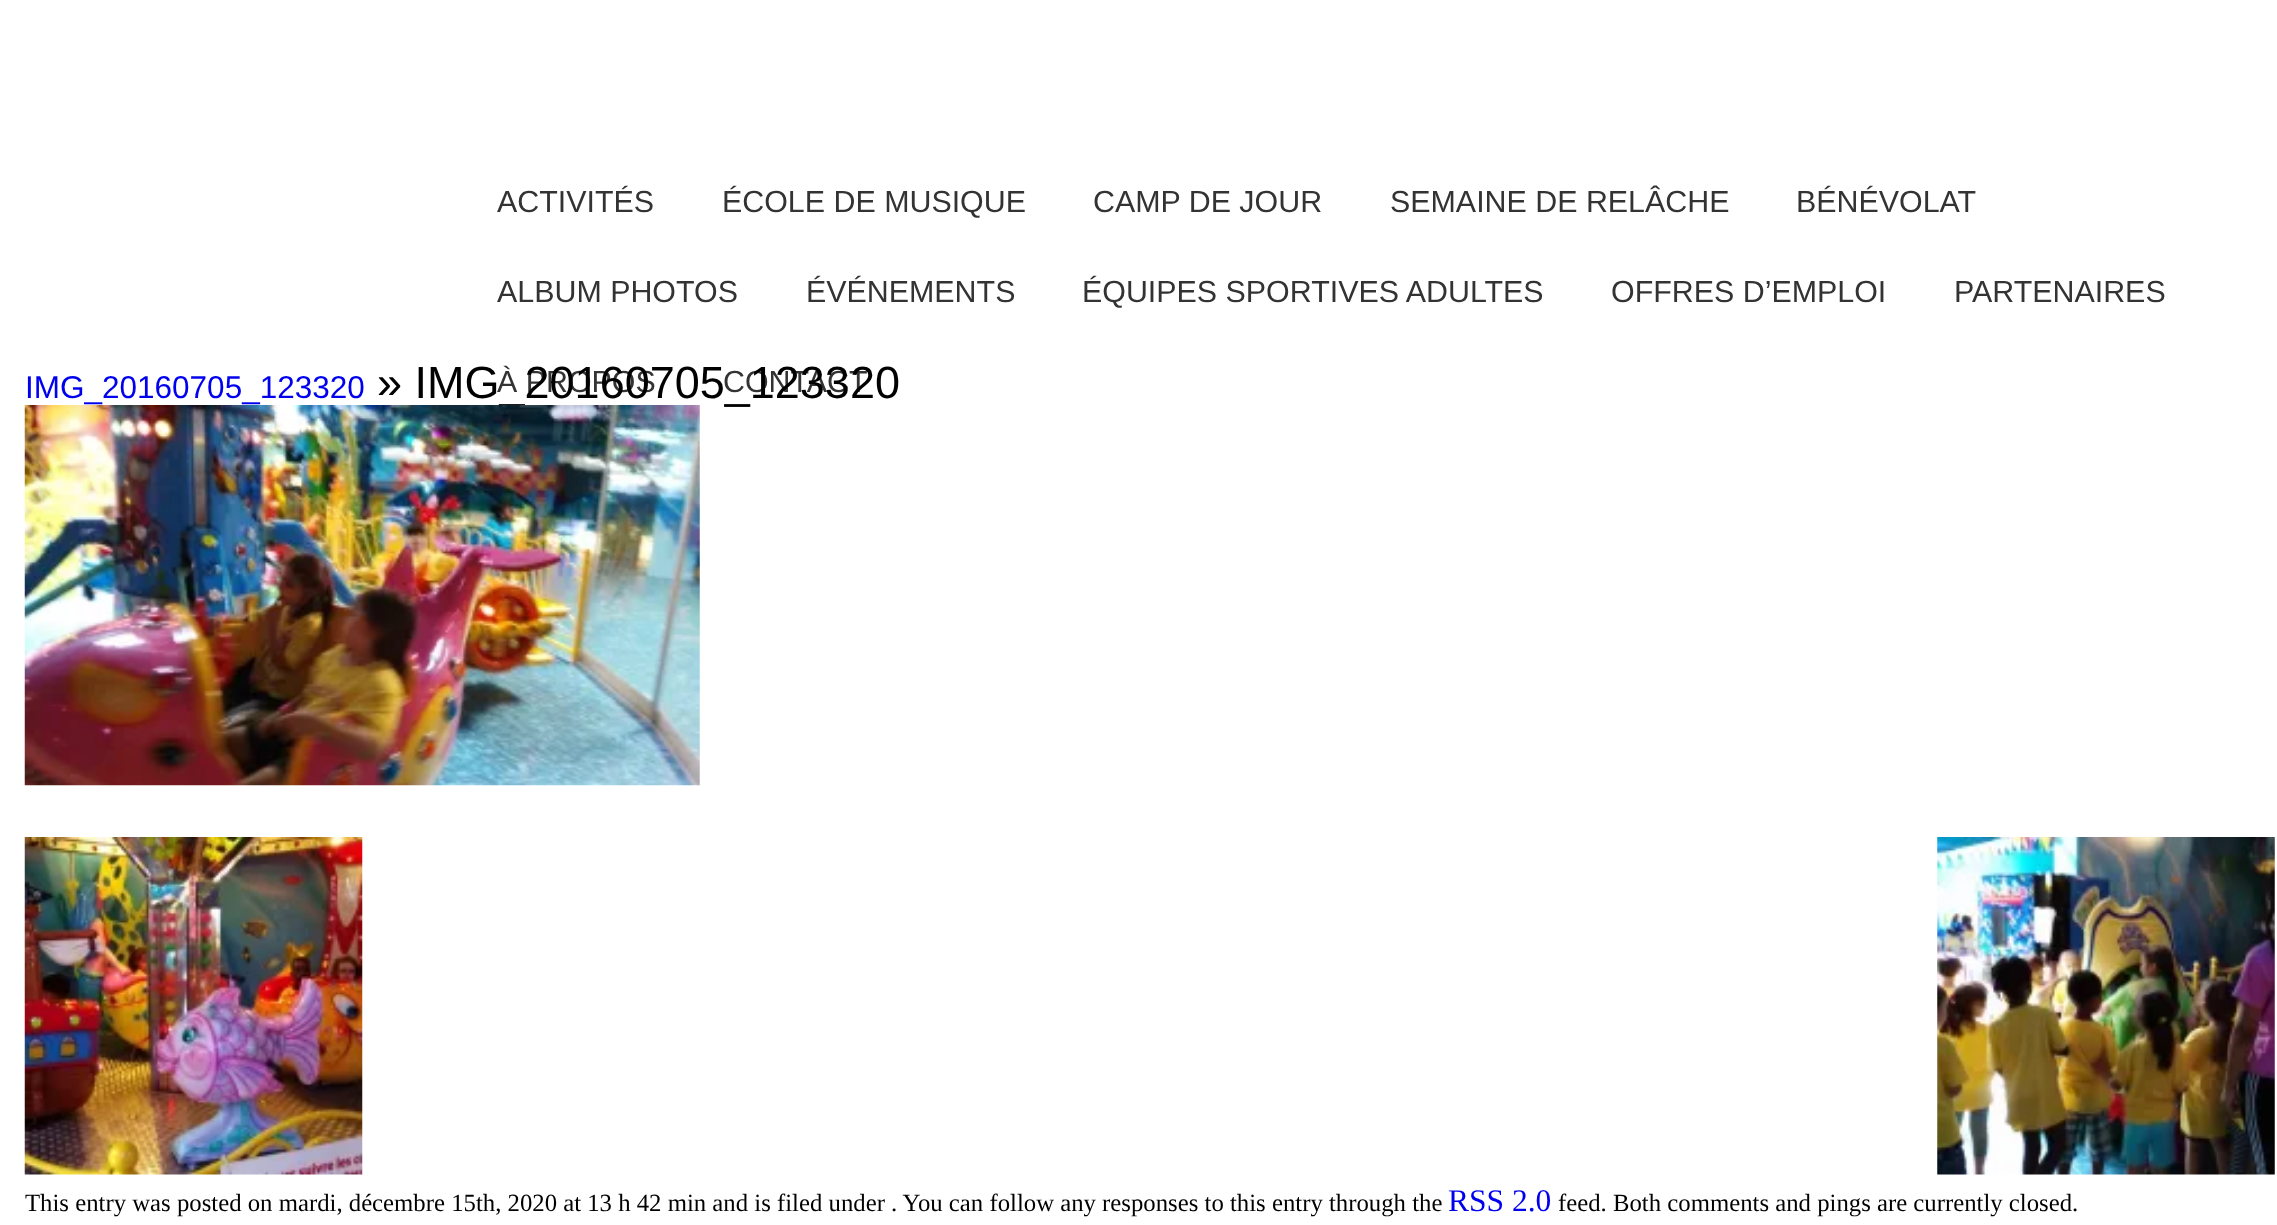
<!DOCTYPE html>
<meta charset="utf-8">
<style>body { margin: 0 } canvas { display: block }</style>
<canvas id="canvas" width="2277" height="1225"></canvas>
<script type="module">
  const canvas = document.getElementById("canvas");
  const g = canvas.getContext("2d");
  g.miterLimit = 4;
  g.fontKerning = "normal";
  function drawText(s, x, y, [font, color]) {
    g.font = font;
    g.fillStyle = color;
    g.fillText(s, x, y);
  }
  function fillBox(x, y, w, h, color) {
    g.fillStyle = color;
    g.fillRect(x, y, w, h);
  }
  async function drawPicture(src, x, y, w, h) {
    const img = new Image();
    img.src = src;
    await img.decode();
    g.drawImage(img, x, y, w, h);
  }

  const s1 = ["30.4px Liberation Sans", "#333333"];
  const s2 = ["31.5px Liberation Sans", "#0000EE"];
  const s3 = ["45px Liberation Sans", "#000000"];
  const s4 = ["24.75px Liberation Serif", "#000000"];
  const s5 = ["31.5px Liberation Serif", "#0000EE"];

  fillBox(0, 0, 2277, 1225, "#FFFFFF");
  drawText("ACTIVITÉS", 497, 212, s1);
  drawText("ÉCOLE DE MUSIQUE", 722, 212, s1);
  drawText("CAMP DE JOUR", 1093, 212, s1);
  drawText("SEMAINE DE RELÂCHE", 1390, 212, s1);
  drawText("BÉNÉVOLAT", 1796, 212, s1);
  drawText("ALBUM PHOTOS", 497, 302, s1);
  drawText("ÉVÉNEMENTS", 806, 302, s1);
  drawText("ÉQUIPES SPORTIVES ADULTES", 1082, 302, s1);
  drawText("OFFRES D’EMPLOI", 1611, 302, s1);
  drawText("PARTENAIRES", 1954, 302, s1);
  drawText("À PROPOS", 497, 392, s1);
  drawText("CONTACT", 723, 392, s1);
  drawText("IMG_20160705_123320", 25, 398, s2);
  drawText("» IMG_20160705_123320", 377, 398, s3);
  await drawPicture("pic1.png", 24, 405, 676, 381);
  await drawPicture("pic2.png", 24, 837, 339, 338);
  await drawPicture("pic3.png", 1937, 837, 338, 338);
  drawText("This entry was posted on mardi, décembre 15th, 2020 at 13 h 42 min and is filed under . You can follow any responses to this entry through the", 25, 1211, s4);
  drawText("RSS 2.0", 1448, 1211, s5);
  drawText("feed. Both comments and pings are currently closed.", 1558, 1211, s4);
</script>
